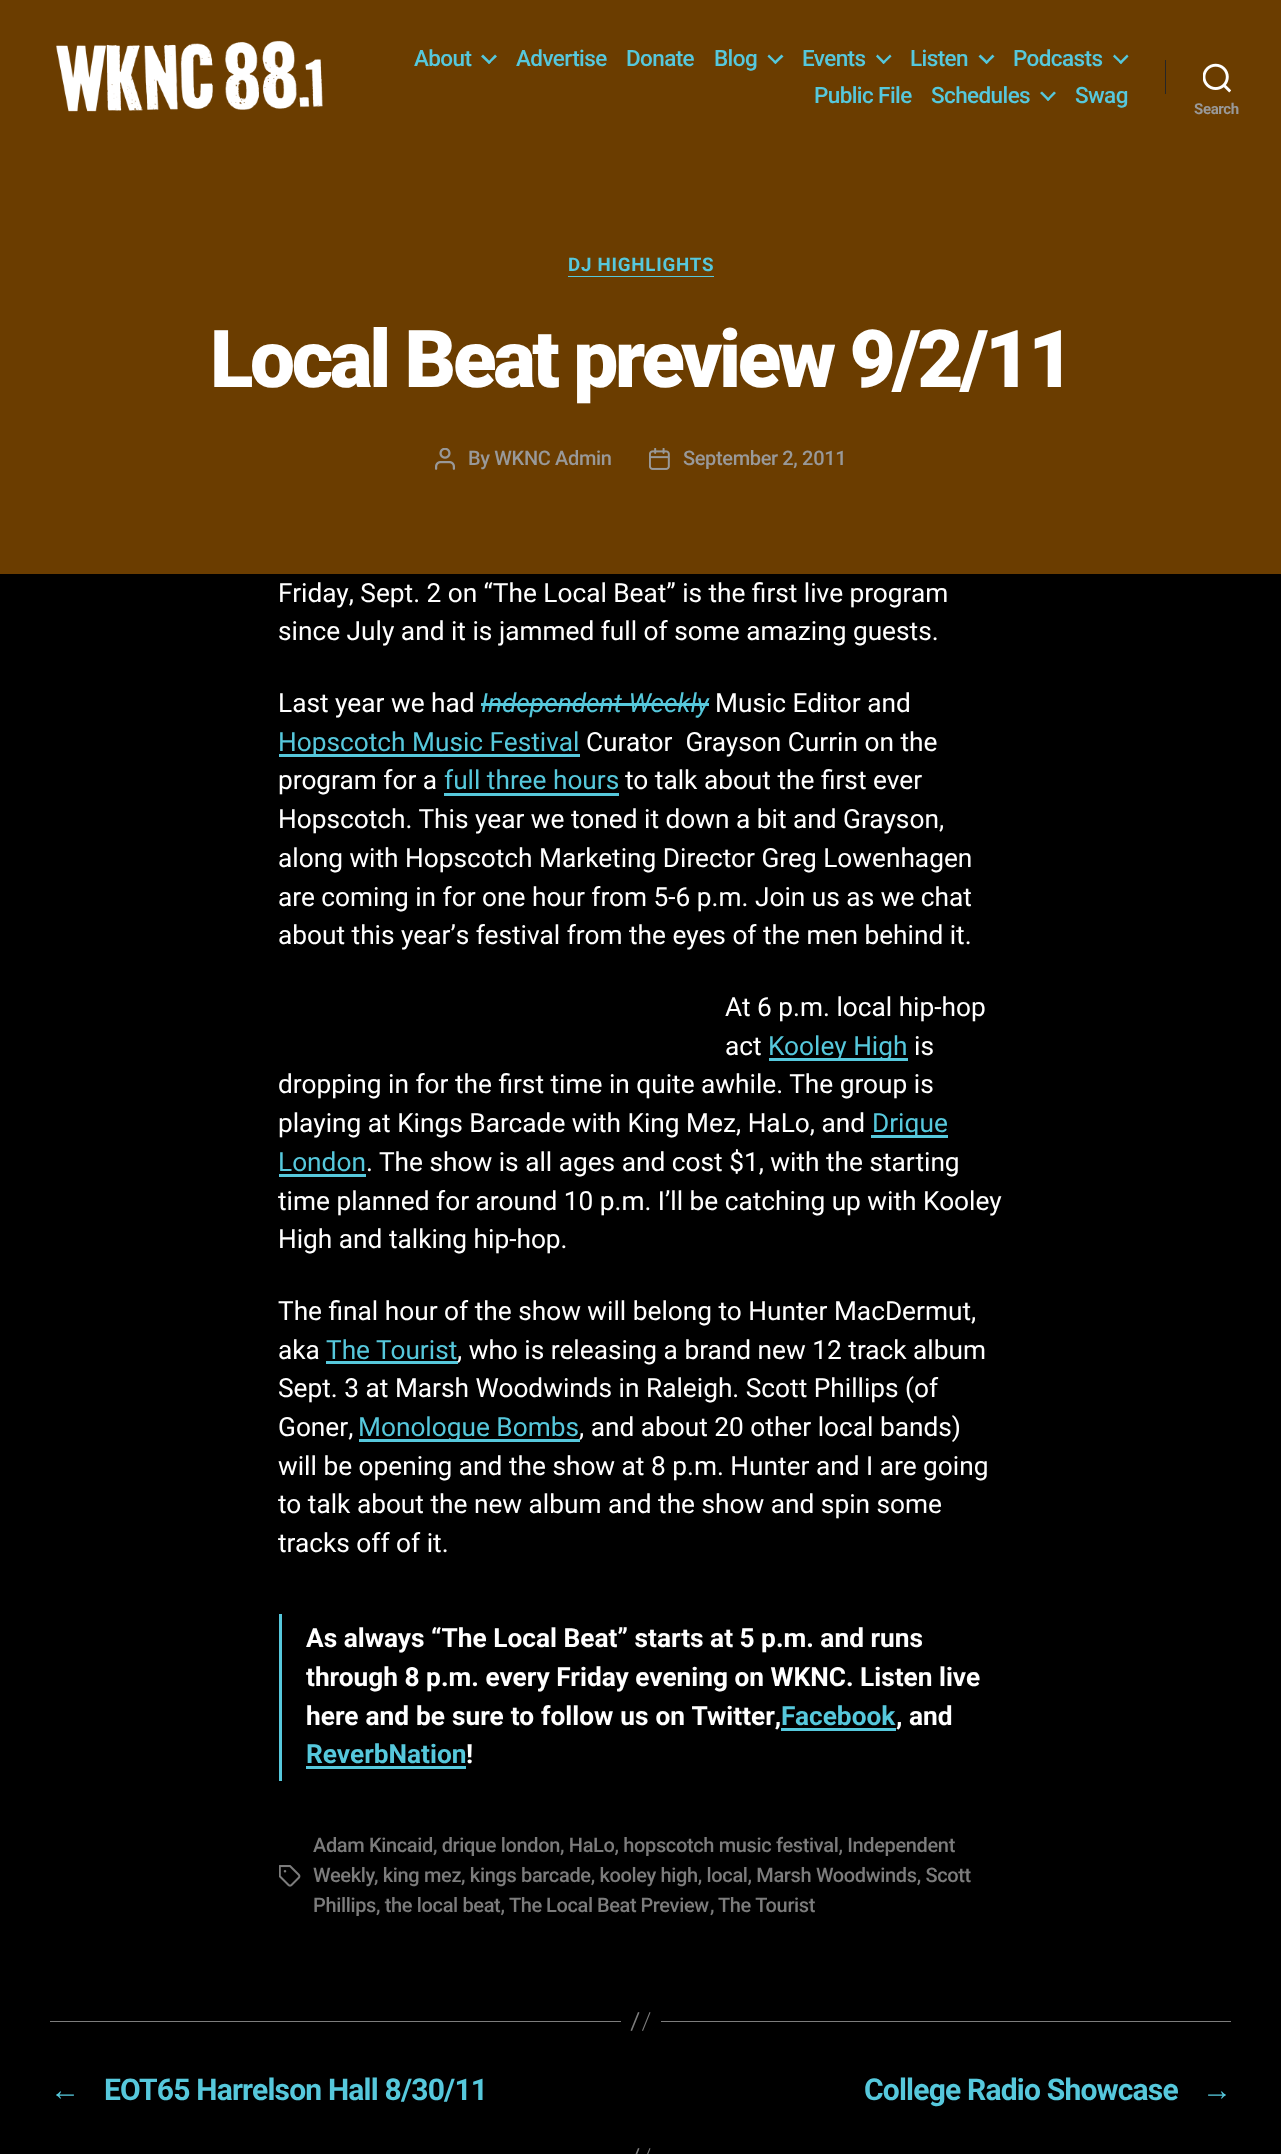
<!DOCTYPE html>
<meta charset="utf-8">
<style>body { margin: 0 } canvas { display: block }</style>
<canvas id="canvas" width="1281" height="2154"></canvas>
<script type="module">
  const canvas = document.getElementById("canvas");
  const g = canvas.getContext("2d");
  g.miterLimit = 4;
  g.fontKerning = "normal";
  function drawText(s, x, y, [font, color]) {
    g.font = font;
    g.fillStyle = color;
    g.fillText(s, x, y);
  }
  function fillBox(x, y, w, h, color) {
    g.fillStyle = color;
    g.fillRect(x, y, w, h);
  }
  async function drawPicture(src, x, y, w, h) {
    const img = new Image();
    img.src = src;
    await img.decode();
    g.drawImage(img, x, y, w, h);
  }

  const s1 = ["500 22.5px Roboto", "#56C8DC"];
  const s2 = ["bold 15px Roboto", "#999999"];
  const s3 = ["bold 18.75px Roboto", "#56C8DC"];
  const s4 = ["900 80px Roboto", "#FFFFFF"];
  const s5 = ["500 20px Roboto", "#999999"];
  const s6 = ["26.25px Roboto", "#FFFFFF"];
  const s7 = ["italic 26.25px Roboto", "#56C8DC"];
  const s8 = ["26.25px Roboto", "#56C8DC"];
  const s9 = ["bold 26.25px Roboto", "#FFFFFF"];
  const s10 = ["bold 26.25px Roboto", "#56C8DC"];
  const s11 = ["500 20px Roboto", "#7C7C7C"];
  const s12 = ["bold 30px Liberation Serif", "#56C8DC"];
  const s13 = ["bold 30px Roboto", "#56C8DC"];

  fillBox(0, 0, 1281, 2154, "#000000");
  fillBox(0, 0, 1281, 574, "#6B3D00");
  await drawPicture("pic1.png", 56, 40, 267, 72);
  g.letterSpacing = "-0.6px";
  drawText("About", 414, 66, s1);
  g.beginPath();
  g.moveTo(481, 56.5);
  g.lineTo(483, 54.5);
  g.lineTo(491, 62.5);
  g.lineTo(489, 64);
  g.closePath();
  g.fill();
  g.beginPath();
  g.moveTo(487.5, 62.5);
  g.lineTo(495, 54.5);
  g.lineTo(497, 56.5);
  g.lineTo(489, 64);
  g.closePath();
  g.fill();
  drawText("Advertise", 516, 66, s1);
  drawText("Donate", 626, 66, s1);
  drawText("Blog", 714, 66, s1);
  g.beginPath();
  g.moveTo(767.5, 56.5);
  g.lineTo(769, 54.5);
  g.lineTo(777, 62.5);
  g.lineTo(775.5, 64);
  g.closePath();
  g.fill();
  g.beginPath();
  g.moveTo(773.5, 62.5);
  g.lineTo(781.5, 54.5);
  g.lineTo(783.5, 56.5);
  g.lineTo(775.5, 64);
  g.closePath();
  g.fill();
  drawText("Events", 802, 66, s1);
  g.beginPath();
  g.moveTo(876, 56.5);
  g.lineTo(877.5, 54.5);
  g.lineTo(885.5, 62.5);
  g.lineTo(883.5, 64);
  g.closePath();
  g.fill();
  g.beginPath();
  g.moveTo(882, 62.5);
  g.lineTo(890, 54.5);
  g.lineTo(891.5, 56.5);
  g.lineTo(883.5, 64);
  g.closePath();
  g.fill();
  drawText("Listen", 910, 66, s1);
  g.beginPath();
  g.moveTo(978.5, 56.5);
  g.lineTo(980.5, 54.5);
  g.lineTo(988.5, 62.5);
  g.lineTo(986.5, 64);
  g.closePath();
  g.fill();
  g.beginPath();
  g.moveTo(985, 62.5);
  g.lineTo(992.5, 54.5);
  g.lineTo(994.5, 56.5);
  g.lineTo(986.5, 64);
  g.closePath();
  g.fill();
  drawText("Podcasts", 1013, 66, s1);
  g.beginPath();
  g.moveTo(1113, 56.5);
  g.lineTo(1114.5, 54.5);
  g.lineTo(1122.5, 62.5);
  g.lineTo(1121, 64);
  g.closePath();
  g.fill();
  g.beginPath();
  g.moveTo(1119, 62.5);
  g.lineTo(1127, 54.5);
  g.lineTo(1128.5, 56.5);
  g.lineTo(1121, 64);
  g.closePath();
  g.fill();
  drawText("Public File", 814, 103, s1);
  drawText("Schedules", 931, 103, s1);
  g.beginPath();
  g.moveTo(1040, 93);
  g.lineTo(1042, 91.5);
  g.lineTo(1050, 99.5);
  g.lineTo(1048, 101);
  g.closePath();
  g.fill();
  g.beginPath();
  g.moveTo(1046.5, 99.5);
  g.lineTo(1054, 91.5);
  g.lineTo(1056, 93);
  g.lineTo(1048, 101);
  g.closePath();
  g.fill();
  drawText("Swag", 1075, 103, s1);
  fillBox(1165, 60, 1, 34, "#262626");
  await drawPicture("pic2.png", 1203, 63, 28, 30);
  g.letterSpacing = "-0.35px";
  drawText("Search", 1194, 114, s2);
  fillBox(568, 276, 146, 1, "#56C8DC");
  g.letterSpacing = "0.75px";
  drawText("DJ HIGHLIGHTS", 568, 271, s3);
  g.letterSpacing = "-3.3px";
  drawText("Local Beat preview 9/2/11", 210, 387, s4);
  await drawPicture("pic3.png", 435, 448, 20, 22);
  g.letterSpacing = "-0.35px";
  drawText("By WKNC Admin", 468, 465, s5);
  await drawPicture("pic4.png", 649, 448, 21, 22);
  drawText("September 2, 2011", 683, 465, s5);
  g.letterSpacing = "0px";
  g.wordSpacing = "-0.1px";
  drawText("Friday, Sept. 2 on “The Local Beat” is the first live program", 278, 602, s6);
  g.wordSpacing = "0px";
  drawText("since July and it is jammed full of some amazing guests.", 278, 640, s6);
  drawText("Last year we had", 278, 712, s6);
  drawText("Independent Weekly", 481, 712, s7);
  fillBox(481, 703, 228, 3, "#56C8DC");
  drawText("Music Editor and", 715, 712, s6);
  fillBox(279, 754, 301, 3, "#56C8DC");
  drawText("Hopscotch Music Festival", 278, 751, s8);
  drawText("Curator  Grayson Currin on the", 586, 751, s6);
  drawText("program for a", 278, 789, s6);
  drawText("full three hours", 444, 789, s8);
  fillBox(444, 793, 175, 3, "#56C8DC");
  drawText("to talk about the first ever", 625, 789, s6);
  drawText("Hopscotch. This year we toned it down a bit and Grayson,", 278, 828, s6);
  drawText("along with Hopscotch Marketing Director Greg Lowenhagen", 278, 867, s6);
  drawText("are coming in for one hour from 5-6 p.m. Join us as we chat", 278, 906, s6);
  drawText("about this year’s festival from the eyes of the men behind it.", 278, 944, s6);
  drawText("At 6 p.m. local hip-hop", 725, 1016, s6);
  drawText("act", 725, 1055, s6);
  fillBox(769, 1058, 139, 3, "#56C8DC");
  drawText("Kooley High", 768, 1055, s8);
  drawText("is", 914, 1055, s6);
  drawText("dropping in for the first time in quite awhile. The group is", 278, 1093, s6);
  drawText("playing at Kings Barcade with King Mez, HaLo, and", 278, 1132, s6);
  fillBox(871, 1135, 77, 3, "#56C8DC");
  drawText("Drique", 872, 1132, s8);
  drawText("London", 278, 1171, s8);
  fillBox(279, 1174, 87, 3, "#56C8DC");
  drawText(". The show is all ages and cost $1, with the starting", 366, 1171, s6);
  drawText("time planned for around 10 p.m. I’ll be catching up with Kooley", 278, 1210, s6);
  drawText("High and talking hip-hop.", 278, 1248, s6);
  drawText("The final hour of the show will belong to Hunter MacDermut,", 278, 1320, s6);
  drawText("aka", 278, 1359, s6);
  drawText("The Tourist", 326, 1359, s8);
  fillBox(326, 1361, 132, 3, "#56C8DC");
  drawText(", who is releasing a brand new 12 track album", 457, 1359, s6);
  drawText("Sept. 3 at Marsh Woodwinds in Raleigh. Scott Phillips (of", 278, 1397, s6);
  drawText("Goner,", 278, 1436, s6);
  fillBox(359, 1439, 221, 3, "#56C8DC");
  drawText("Monologue Bombs", 358, 1436, s8);
  drawText(", and about 20 other local bands)", 579, 1436, s6);
  drawText("will be opening and the show at 8 p.m. Hunter and I are going", 278, 1475, s6);
  drawText("to talk about the new album and the show and spin some", 278, 1513, s6);
  drawText("tracks off of it.", 278, 1552, s6);
  fillBox(279, 1614, 3, 167, "#56C8DC");
  drawText("As always “The Local Beat” starts at 5 p.m. and runs", 306, 1647, s9);
  drawText("through 8 p.m. every Friday evening on WKNC. Listen live", 306, 1686, s9);
  g.wordSpacing = "0.5px";
  drawText("here and be sure to follow us on Twitter,", 306, 1725, s9);
  g.wordSpacing = "0px";
  drawText("Facebook", 781, 1725, s10);
  drawText(", and", 896, 1725, s9);
  fillBox(781, 1728, 115, 3, "#56C8DC");
  drawText("ReverbNation", 306, 1763, s10);
  fillBox(306, 1766, 160, 3, "#56C8DC");
  drawText("!", 466, 1763, s9);
  await drawPicture("pic5.png", 279, 1865, 22, 22);
  g.letterSpacing = "-0.35px";
  drawText("Adam Kincaid, drique london, HaLo, hopscotch music festival, Independent", 313, 1852, s11);
  drawText("Weekly", 313, 1882, s11);
  drawText(", king mez, kings barcade, kooley high, local, Marsh Woodwinds, Scott", 374, 1882, s11);
  drawText("Phillips, the local beat,", 313, 1912, s11);
  g.wordSpacing = "-0.5px";
  drawText("The Local Beat Preview", 509, 1912, s11);
  g.wordSpacing = "0px";
  drawText(",", 710, 1912, s11);
  drawText("The Tourist", 718, 1912, s11);
  fillBox(661, 2021, 570, 1, "#7C7C7C");
  fillBox(50, 2021, 571, 1, "#7C7C7C");
  g.beginPath();
  g.moveTo(638, 2012);
  g.lineTo(639.5, 2012.5);
  g.lineTo(632, 2031);
  g.lineTo(630.5, 2030.5);
  g.closePath();
  g.moveTo(649.5, 2012);
  g.lineTo(650.5, 2012.5);
  g.lineTo(643, 2031);
  g.lineTo(642, 2030.5);
  g.closePath();
  g.fill();
  g.letterSpacing = "-0.8px";
  drawText("←", 50, 2100, s12);
  drawText("EOT65 Harrelson Hall 8/30/11", 104, 2100, s13);
  drawText("College Radio Showcase", 864, 2100, s13);
  drawText("→", 1202, 2100, s12);
  g.fillStyle = "#7C7C7C";
  g.beginPath();
  g.moveTo(638, 2148);
  g.lineTo(639.5, 2148.5);
  g.lineTo(632, 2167);
  g.lineTo(630.5, 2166.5);
  g.closePath();
  g.moveTo(649.5, 2148);
  g.lineTo(650.5, 2148.5);
  g.lineTo(643, 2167);
  g.lineTo(642, 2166.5);
  g.closePath();
  g.fill();
</script>
